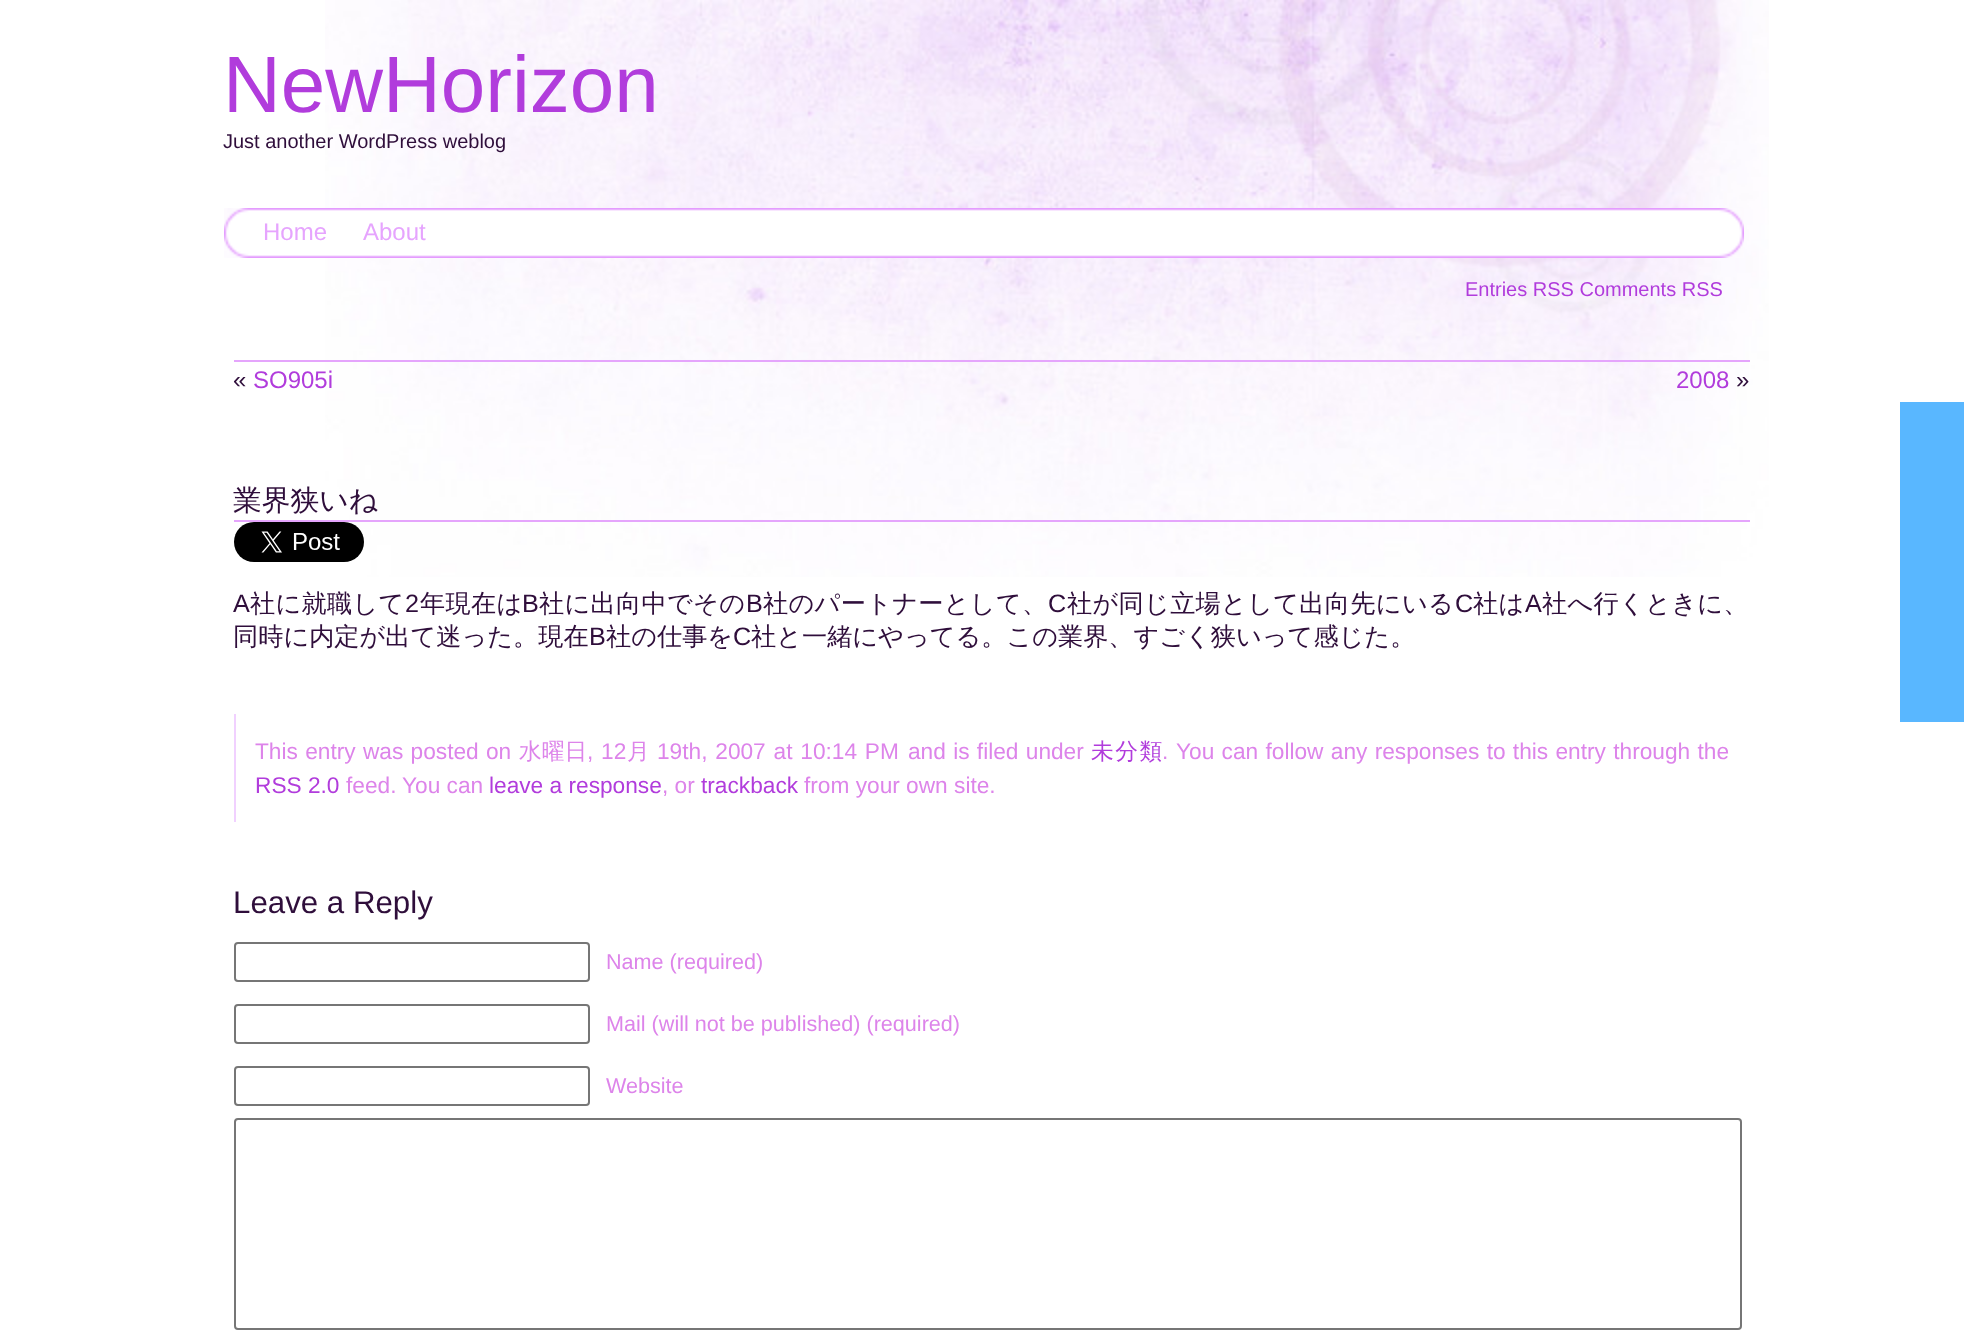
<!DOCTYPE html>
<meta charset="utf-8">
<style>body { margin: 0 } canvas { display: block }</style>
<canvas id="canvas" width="1965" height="1336"></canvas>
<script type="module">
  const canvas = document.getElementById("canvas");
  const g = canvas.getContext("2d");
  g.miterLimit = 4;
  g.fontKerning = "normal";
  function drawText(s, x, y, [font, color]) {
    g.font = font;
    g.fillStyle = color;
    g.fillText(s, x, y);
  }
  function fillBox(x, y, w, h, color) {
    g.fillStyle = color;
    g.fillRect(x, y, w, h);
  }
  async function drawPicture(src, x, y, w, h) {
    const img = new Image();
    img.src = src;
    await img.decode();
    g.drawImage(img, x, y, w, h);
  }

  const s1 = ["80px Liberation Sans", "#B13CDC"];
  const s2 = ["20px Liberation Sans", "#2F0E3B"];
  const s3 = ["24px Liberation Sans", "#E6A4FE"];
  const s4 = ["20px Liberation Sans", "#B13CDC"];
  const s5 = ["24px Liberation Sans", "#2F0E3B"];
  const s6 = ["24px Liberation Sans", "#B13CDC"];
  const s7 = ["500 28.75px WenQuanYi Zen Hei", "#2F0E3B"];
  const s8 = ["25.2px Liberation Sans", "#2F0E3B"];
  const s9 = ["500 25.2px WenQuanYi Zen Hei", "#2F0E3B"];
  const s10 = ["22.7px Liberation Sans", "#DD84EA"];
  const s11 = ["500 22.7px WenQuanYi Zen Hei", "#DD84EA"];
  const s12 = ["500 22.7px WenQuanYi Zen Hei", "#B13CDC"];
  const s13 = ["22.7px Liberation Sans", "#B13CDC"];
  const s14 = ["31.25px Liberation Sans", "#2F0E3B"];
  const s15 = ["21.6px Liberation Sans", "#DD84EA"];

  fillBox(0, 0, 1965, 1336, "#FFFFFF");
  await drawPicture("pic1.png", 325, 0, 1444, 577);
  drawText("NewHorizon", 223, 112, s1);
  drawText("Just another WordPress weblog", 223, 148, s2);
  await drawPicture("pic2.png", 224, 208, 1520, 50);
  drawText("Home", 263, 240, s3);
  drawText("About", 363, 240, s3);
  drawText("Entries RSS Comments RSS", 1465, 296, s4);
  fillBox(234, 360, 1516, 2, "#E5A5FC");
  drawText("«", 233, 388, s5);
  drawText("SO905i", 253, 388, s6);
  drawText("2008", 1676, 388, s6);
  drawText("»", 1736, 388, s5);
  fillBox(234, 520, 1516, 2, "#E5A5FC");
  drawText("業界狭いね", 233, 510, s7);
  await drawPicture("pic3.png", 234, 522, 130, 40);
  g.letterSpacing = "0.3px";
  drawText("A", 233, 612, s8);
  drawText("社に就職して", 250, 612, s9);
  drawText("2", 405, 612, s8);
  drawText("年現在は", 420, 612, s9);
  drawText("B", 522, 612, s8);
  drawText("社に出向中でその", 539, 612, s9);
  drawText("B", 746, 612, s8);
  drawText("社のパートナーとして、", 763, 612, s9);
  drawText("C", 1048, 612, s8);
  drawText("社が同じ立場として出向先にいる", 1067, 612, s9);
  drawText("C", 1455, 612, s8);
  drawText("社は", 1473, 612, s9);
  drawText("A", 1525, 612, s8);
  drawText("社へ行くときに、", 1542, 612, s9);
  g.letterSpacing = "0px";
  drawText("同時に内定が出て迷った。現在", 233, 645, s9);
  drawText("B", 589, 645, s8);
  drawText("社の仕事を", 606, 645, s9);
  drawText("C", 733, 645, s8);
  drawText("社と一緒にやってる。この業界、すごく狭いって感じた。", 751, 645, s9);
  fillBox(234, 714, 2, 108, "#F1D1FF");
  g.wordSpacing = "1px";
  drawText("This entry was posted", 255, 759, s10);
  g.wordSpacing = "0px";
  drawText("on", 486, 759, s10);
  drawText("水曜日", 519, 759, s11);
  g.wordSpacing = "1.5px";
  drawText(", 12", 587, 759, s10);
  g.wordSpacing = "0px";
  drawText("月", 627, 759, s11);
  g.wordSpacing = "1.5px";
  drawText("19th, 2007 at 10:14 PM", 657, 759, s10);
  g.wordSpacing = "1px";
  drawText("and is filed under", 908, 759, s10);
  g.letterSpacing = "1.5px";
  g.wordSpacing = "0px";
  drawText("未分類", 1091, 759, s12);
  g.letterSpacing = "0px";
  drawText(".", 1162, 759, s10);
  g.wordSpacing = "1px";
  drawText("You can follow any responses to this entry through the", 1176, 759, s10);
  g.wordSpacing = "0px";
  drawText("RSS 2.0", 255, 793, s13);
  drawText("feed.", 346, 793, s10);
  drawText("You can", 402, 793, s10);
  drawText("leave a response", 489, 793, s13);
  drawText(", or", 662, 793, s10);
  drawText("trackback", 701, 793, s13);
  drawText("from your own site.", 804, 793, s10);
  drawText("Leave a Reply", 233, 913, s14);
  g.beginPath();
  g.roundRect(235, 943, 354, 38, 3);
  g.strokeStyle = "#767676";
  g.lineWidth = 2;
  g.stroke();
  drawText("Name (required)", 606, 969, s15);
  g.beginPath();
  g.roundRect(235, 1005, 354, 38, 3);
  g.stroke();
  drawText("Mail (will not be published) (required)", 606, 1031, s15);
  g.beginPath();
  g.roundRect(235, 1067, 354, 38, 3);
  g.stroke();
  drawText("Website", 606, 1093, s15);
  g.beginPath();
  g.roundRect(235, 1119, 1506, 210, 3);
  g.stroke();
  fillBox(1900, 402, 64, 320, "#59B7FF");
</script>
